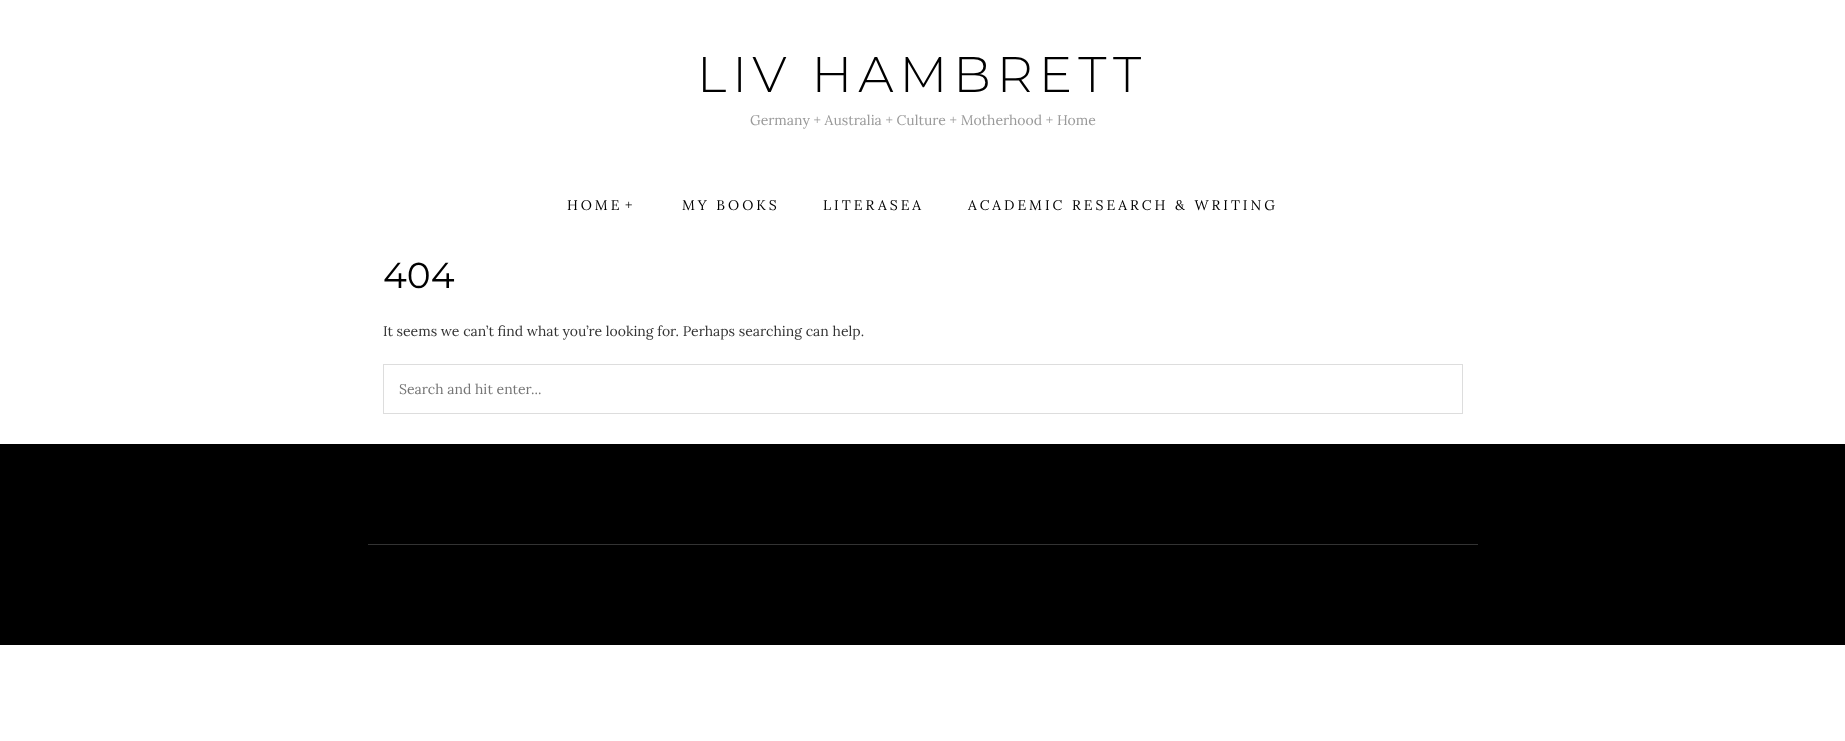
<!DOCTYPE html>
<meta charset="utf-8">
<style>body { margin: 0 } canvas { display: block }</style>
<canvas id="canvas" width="1845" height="741"></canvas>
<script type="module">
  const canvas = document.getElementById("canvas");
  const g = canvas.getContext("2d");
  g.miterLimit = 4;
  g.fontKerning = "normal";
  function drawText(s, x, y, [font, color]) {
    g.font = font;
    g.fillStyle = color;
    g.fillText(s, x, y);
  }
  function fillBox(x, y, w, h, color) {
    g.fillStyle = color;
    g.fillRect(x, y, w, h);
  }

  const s1 = ["300 50px Montserrat", "#000000"];
  const s2 = ["14px Lora", "#999999"];
  const s3 = ["14px Lora", "#000000"];
  const s4 = ["36px Montserrat", "#000000"];
  const s5 = ["14px Lora", "#333333"];
  const s6 = ["14px Lora", "#757575"];

  fillBox(0, 0, 1845, 741, "#FFFFFF");
  g.letterSpacing = "6px";
  drawText("LIV HAMBRETT", 697, 92, s1);
  g.letterSpacing = "0px";
  drawText("Germany + Australia + Culture + Motherhood + Home", 750, 125, s2);
  g.letterSpacing = "3px";
  drawText("HOME", 567, 210, s3);
  drawText("+", 625, 210, s3);
  drawText("MY BOOKS", 682, 210, s3);
  drawText("LITERASEA", 823, 210, s3);
  drawText("ACADEMIC RESEARCH & WRITING", 968, 210, s3);
  g.letterSpacing = "0px";
  drawText("404", 383, 288, s4);
  drawText("It seems we can’t find what you’re looking for. Perhaps searching can help.", 383, 336, s5);
  g.strokeStyle = "#DDDDDD";
  g.strokeRect(383.5, 364.5, 1079, 49);
  drawText("Search and hit enter...", 399, 394, s6);
  fillBox(0, 444, 1845, 201, "#000000");
  fillBox(368, 544, 1110, 1, "#333333");
</script>
